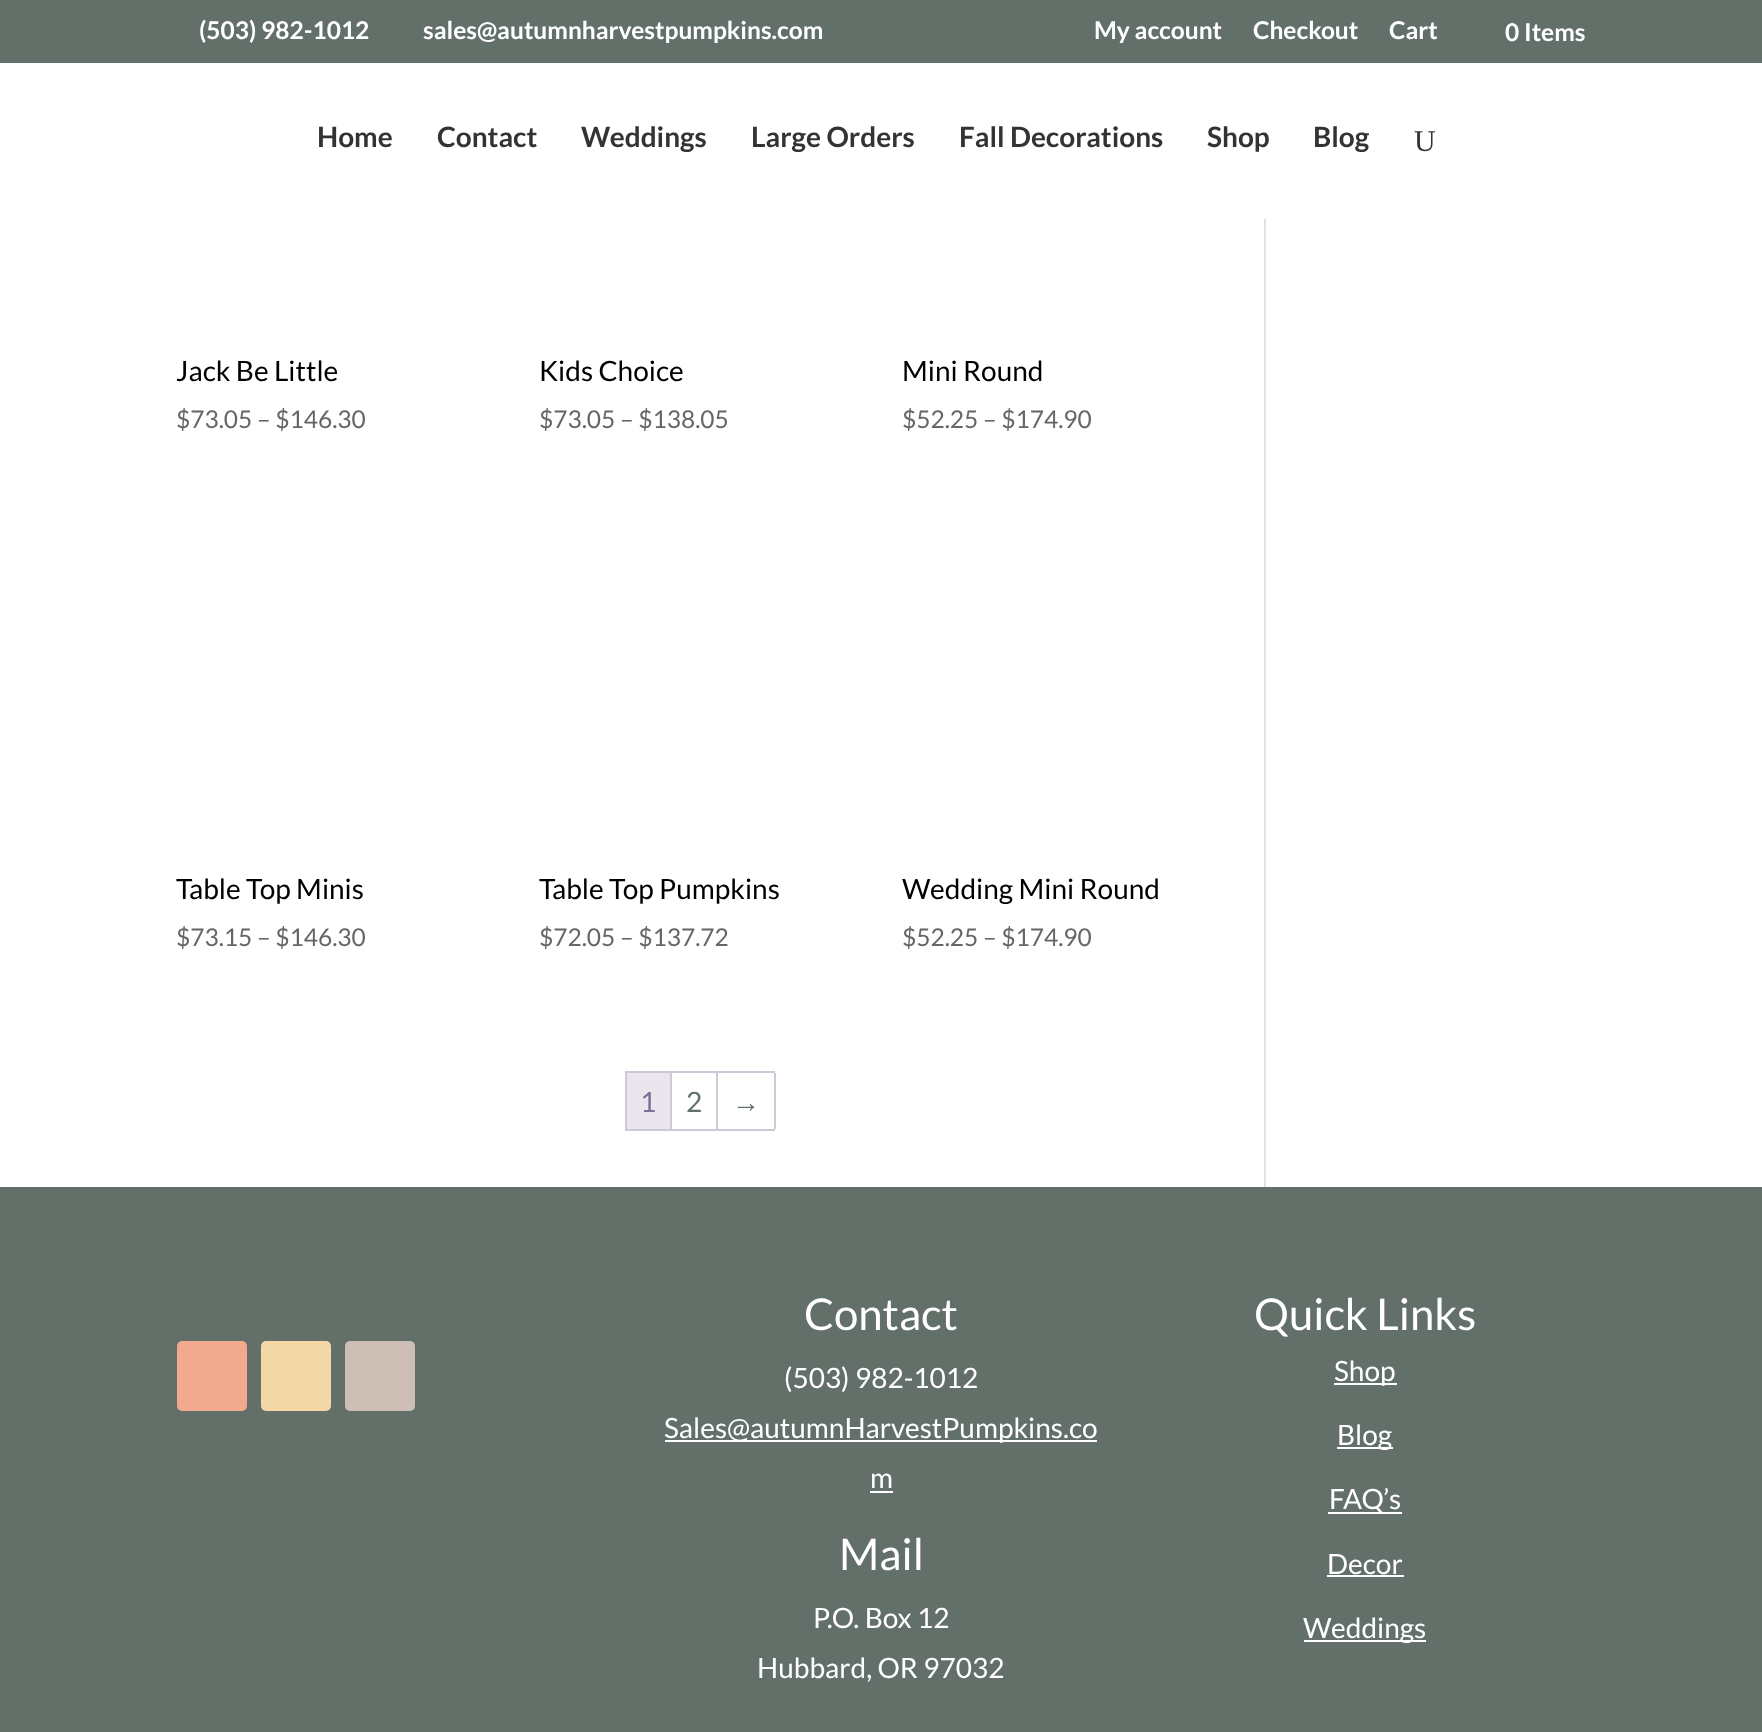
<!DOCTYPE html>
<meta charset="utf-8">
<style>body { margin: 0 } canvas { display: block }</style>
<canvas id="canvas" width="1762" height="1732"></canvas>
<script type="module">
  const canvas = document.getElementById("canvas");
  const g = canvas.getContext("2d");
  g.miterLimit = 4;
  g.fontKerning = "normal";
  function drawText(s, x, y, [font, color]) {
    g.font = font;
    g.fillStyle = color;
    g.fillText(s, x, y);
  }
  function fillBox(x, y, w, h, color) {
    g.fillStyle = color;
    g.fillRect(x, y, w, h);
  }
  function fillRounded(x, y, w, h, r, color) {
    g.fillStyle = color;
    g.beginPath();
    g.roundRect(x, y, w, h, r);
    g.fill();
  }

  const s1 = ["bold 24.5px Lato", "#FFFFFF"];
  const s2 = ["bold 28px Lato", "#333333"];
  const s3 = ["30px Liberation Serif", "#333333"];
  const s4 = ["28px Lato", "#000000"];
  const s5 = ["24.5px Lato", "#666666"];
  const s6 = ["28px Lato", "#816F98"];
  const s7 = ["28px Lato", "#63706A"];
  const s8 = ["28px Liberation Sans", "#63706A"];
  const s9 = ["43.75px Lato", "#FFFFFF"];
  const s10 = ["28px Lato", "#FFFFFF"];

  fillBox(0, 0, 1762, 1732, "#FFFFFF");
  fillBox(0, 0, 1762, 63, "#63706A");
  drawText("(503) 982-1012", 199, 39, s1);
  drawText("sales@autumnharvestpumpkins.com", 423, 39, s1);
  drawText("My account", 1094, 39, s1);
  drawText("Checkout", 1253, 39, s1);
  drawText("Cart", 1389, 39, s1);
  drawText("0 Items", 1505, 41, s1);
  fillBox(1264, 63, 2, 1124, "#E2E2E2");
  fillBox(1264, 63, 2, 156, "rgba(255, 255, 255, 0.99)");
  drawText("Home", 317, 147, s2);
  drawText("Contact", 437, 147, s2);
  drawText("Weddings", 581, 147, s2);
  drawText("Large Orders", 751, 147, s2);
  drawText("Fall Decorations", 959, 147, s2);
  drawText("Shop", 1207, 147, s2);
  drawText("Blog", 1313, 147, s2);
  drawText("U", 1414, 151, s3);
  drawText("Jack Be Little", 176, 381, s4);
  drawText("$73.05 – $146.30", 176, 428, s5);
  drawText("Kids Choice", 539, 381, s4);
  drawText("$73.05 – $138.05", 539, 428, s5);
  drawText("Mini Round", 902, 381, s4);
  drawText("$52.25 – $174.90", 902, 428, s5);
  drawText("Table Top Minis", 176, 899, s4);
  drawText("$73.15 – $146.30", 176, 946, s5);
  drawText("Table Top Pumpkins", 539, 899, s4);
  drawText("$72.05 – $137.72", 539, 946, s5);
  drawText("Wedding Mini Round", 902, 899, s4);
  drawText("$52.25 – $174.90", 902, 946, s5);
  fillBox(625, 1071, 150, 2, "#CFC8D8");
  fillBox(625, 1129, 150, 2, "#CFC8D8");
  fillBox(625, 1071, 2, 60, "#CFC8D8");
  fillBox(670, 1073, 2, 56, "#CFC8D8");
  fillBox(627, 1073, 43, 56, "#E9E6ED");
  drawText("1", 640, 1112, s6);
  fillBox(716, 1073, 2, 56, "#CFC8D8");
  drawText("2", 686, 1112, s7);
  fillBox(774, 1073, 2, 56, "#CFC8D8");
  drawText("→", 732, 1112, s8);
  fillBox(0, 1187, 1762, 545, "#63706A");
  fillRounded(177, 1341, 70, 70, 5, "#F2AA8E");
  fillRounded(261, 1341, 70, 70, 5, "#F3D7A4");
  fillRounded(345, 1341, 70, 70, 5, "#CDBFB6");
  drawText("Contact", 804, 1330, s9);
  drawText("(503) 982-1012", 784, 1388, s10);
  fillBox(665, 1440, 432, 2, "#FFFFFF");
  drawText("Sales@autumnHarvestPumpkins.co", 664, 1438, s10);
  drawText("m", 870, 1488, s10);
  fillBox(870, 1491, 23, 2, "#FFFFFF");
  drawText("Mail", 839, 1570, s9);
  drawText("P.O. Box 12", 813, 1628, s10);
  drawText("Hubbard, OR 97032", 757, 1678, s10);
  drawText("Quick Links", 1254, 1330, s9);
  fillBox(1334, 1383, 63, 2, "#FFFFFF");
  drawText("Shop", 1334, 1381, s10);
  fillBox(1337, 1447, 56, 2, "#FFFFFF");
  drawText("Blog", 1337, 1445, s10);
  fillBox(1328, 1512, 74, 2, "#FFFFFF");
  drawText("FAQ’s", 1329, 1509, s10);
  drawText("Decor", 1327, 1574, s10);
  fillBox(1327, 1575, 77, 2, "#FFFFFF");
  fillBox(1304, 1640, 122, 2, "#FFFFFF");
  drawText("Weddings", 1303, 1638, s10);
</script>
